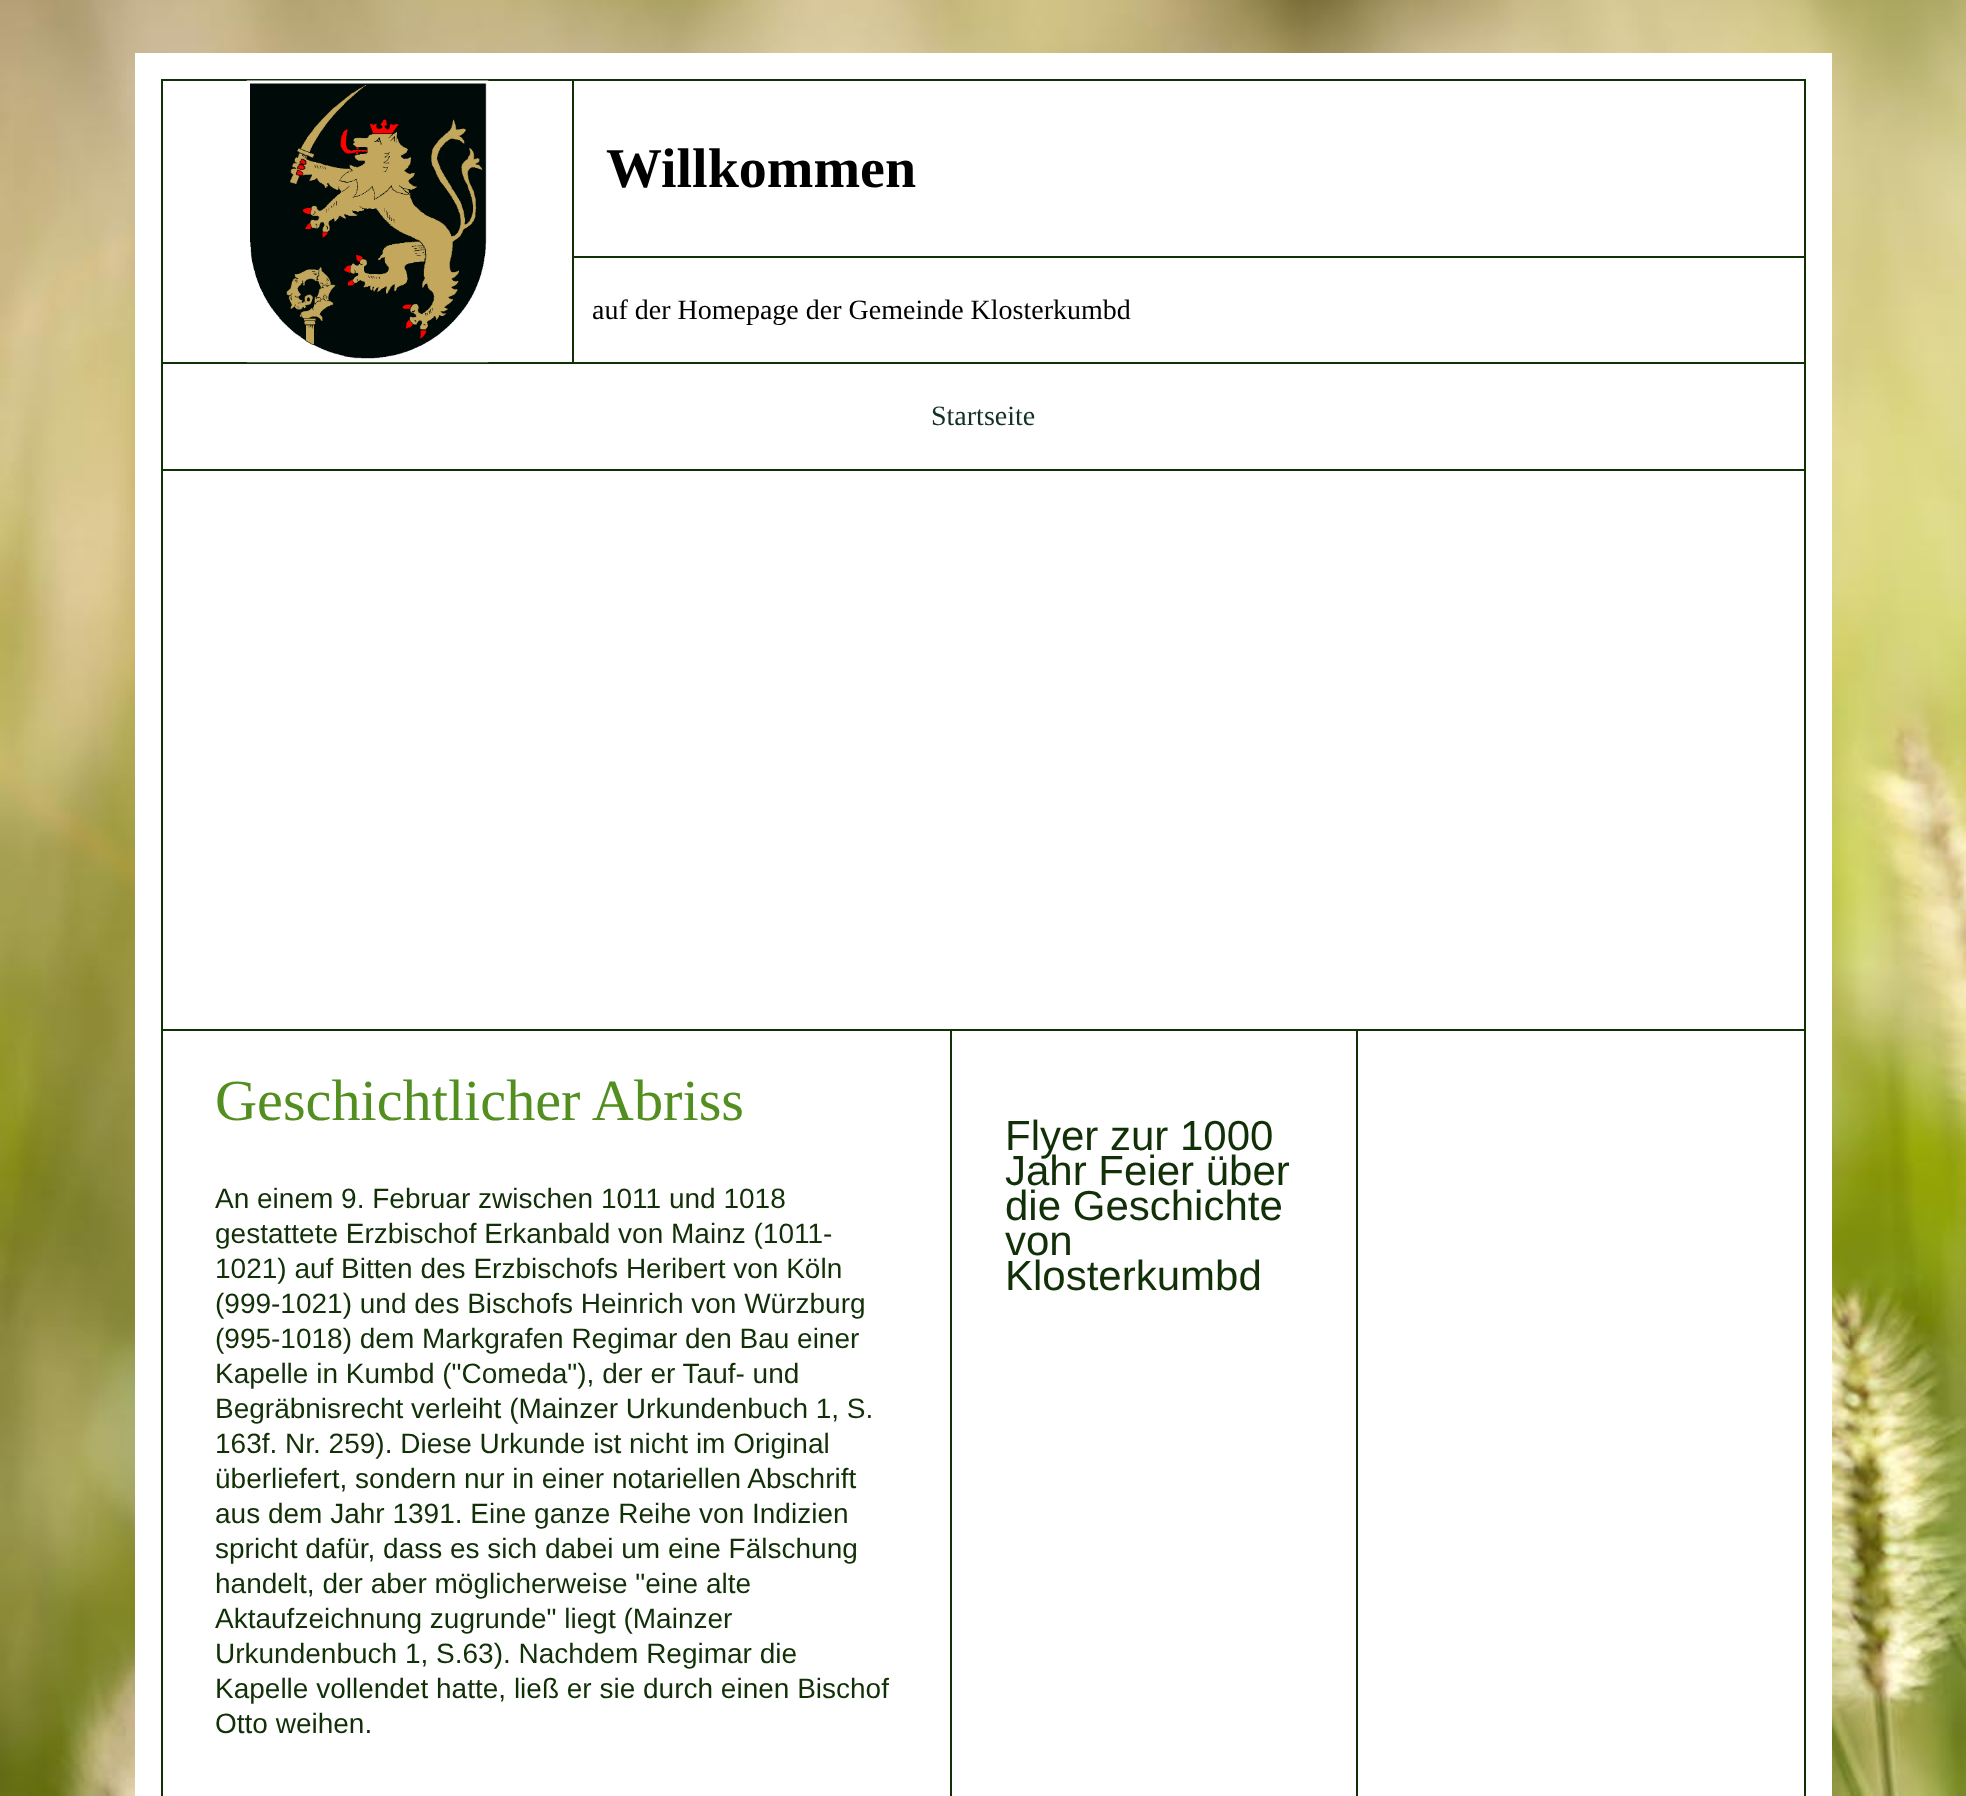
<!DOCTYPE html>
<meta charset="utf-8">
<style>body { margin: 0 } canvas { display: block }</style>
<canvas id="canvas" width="1966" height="1796"></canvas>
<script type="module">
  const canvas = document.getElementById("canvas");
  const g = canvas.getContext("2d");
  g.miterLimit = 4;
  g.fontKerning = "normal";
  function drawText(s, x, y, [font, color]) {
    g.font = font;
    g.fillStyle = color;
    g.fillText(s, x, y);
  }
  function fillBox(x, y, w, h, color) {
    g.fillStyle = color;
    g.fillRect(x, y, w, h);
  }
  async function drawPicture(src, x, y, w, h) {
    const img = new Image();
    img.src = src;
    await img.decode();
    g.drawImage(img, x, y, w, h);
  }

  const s1 = ["bold 56px Liberation Serif", "#000000"];
  const s2 = ["28px Liberation Serif", "#000000"];
  const s3 = ["28px Liberation Serif", "#123023"];
  const s4 = ["58.25px Liberation Serif", "#528F20"];
  const s5 = ["28px Liberation Sans", "#123007"];
  const s6 = ["42px Liberation Sans", "#123007"];

  fillBox(0, 0, 1966, 1796, "#FFFFFF");
  await drawPicture("pic1.png", 0, 0, 1966, 1796);
  fillBox(163, 81, 1641, 1715, "#FFFFFF");
  g.strokeStyle = "#FFFFFF";
  g.lineWidth = 26;
  g.strokeRect(148, 66, 1671, 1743);
  fillBox(161, 79, 1645, 2, "#123005");
  fillBox(161, 362, 411, 2, "#123005");
  fillBox(161, 79, 2, 285, "#123005");
  await drawPicture("pic2.png", 246, 80, 243, 283);
  fillBox(1804, 79, 2, 177, "#123005");
  fillBox(572, 79, 2, 177, "#123005");
  drawText("Willkommen", 606, 187, s1);
  g.strokeStyle = "#123005";
  g.lineWidth = 2;
  g.strokeRect(573, 257, 1232, 106);
  drawText("auf der Homepage der Gemeinde Klosterkumbd", 592, 319, s2);
  fillBox(161, 469, 1645, 2, "#123005");
  fillBox(161, 364, 2, 107, "#123005");
  fillBox(1804, 364, 2, 105, "#123005");
  drawText("Startseite", 931, 425, s3);
  fillBox(1804, 471, 2, 1325, "#123005");
  fillBox(161, 1029, 1645, 2, "#123005");
  fillBox(161, 471, 2, 560, "#123005");
  fillBox(161, 1031, 2, 765, "#123005");
  drawText("Geschichtlicher Abriss", 215, 1120, s4);
  drawText("An einem 9. Februar zwischen 1011 und 1018", 215, 1208, s5);
  drawText("gestattete Erzbischof Erkanbald von Mainz (1011-", 215, 1243, s5);
  drawText("1021) auf Bitten des Erzbischofs Heribert von Köln", 215, 1278, s5);
  drawText("(999-1021) und des Bischofs Heinrich von Würzburg", 215, 1313, s5);
  drawText("(995-1018) dem Markgrafen Regimar den Bau einer", 215, 1348, s5);
  drawText("Kapelle in Kumbd (\"Comeda\"), der er Tauf- und", 215, 1383, s5);
  drawText("Begräbnisrecht verleiht (Mainzer Urkundenbuch 1, S.", 215, 1418, s5);
  drawText("163f. Nr. 259). Diese Urkunde ist nicht im Original", 215, 1453, s5);
  drawText("überliefert, sondern nur in einer notariellen Abschrift", 215, 1488, s5);
  drawText("aus dem Jahr 1391. Eine ganze Reihe von Indizien", 215, 1523, s5);
  drawText("spricht dafür, dass es sich dabei um eine Fälschung", 215, 1558, s5);
  drawText("handelt, der aber möglicherweise \"eine alte", 215, 1593, s5);
  drawText("Aktaufzeichnung zugrunde\" liegt (Mainzer", 215, 1628, s5);
  drawText("Urkundenbuch 1, S.63). Nachdem Regimar die", 215, 1663, s5);
  drawText("Kapelle vollendet hatte, ließ er sie durch einen Bischof", 215, 1698, s5);
  drawText("Otto weihen.", 215, 1733, s5);
  fillBox(950, 1031, 2, 765, "#123005");
  drawText("Flyer zur 1000", 1005, 1150, s6);
  drawText("Jahr Feier über", 1005, 1185, s6);
  drawText("die Geschichte", 1005, 1220, s6);
  drawText("von", 1005, 1255, s6);
  drawText("Klosterkumbd", 1005, 1290, s6);
  fillBox(1356, 1031, 2, 765, "#123005");
</script>
